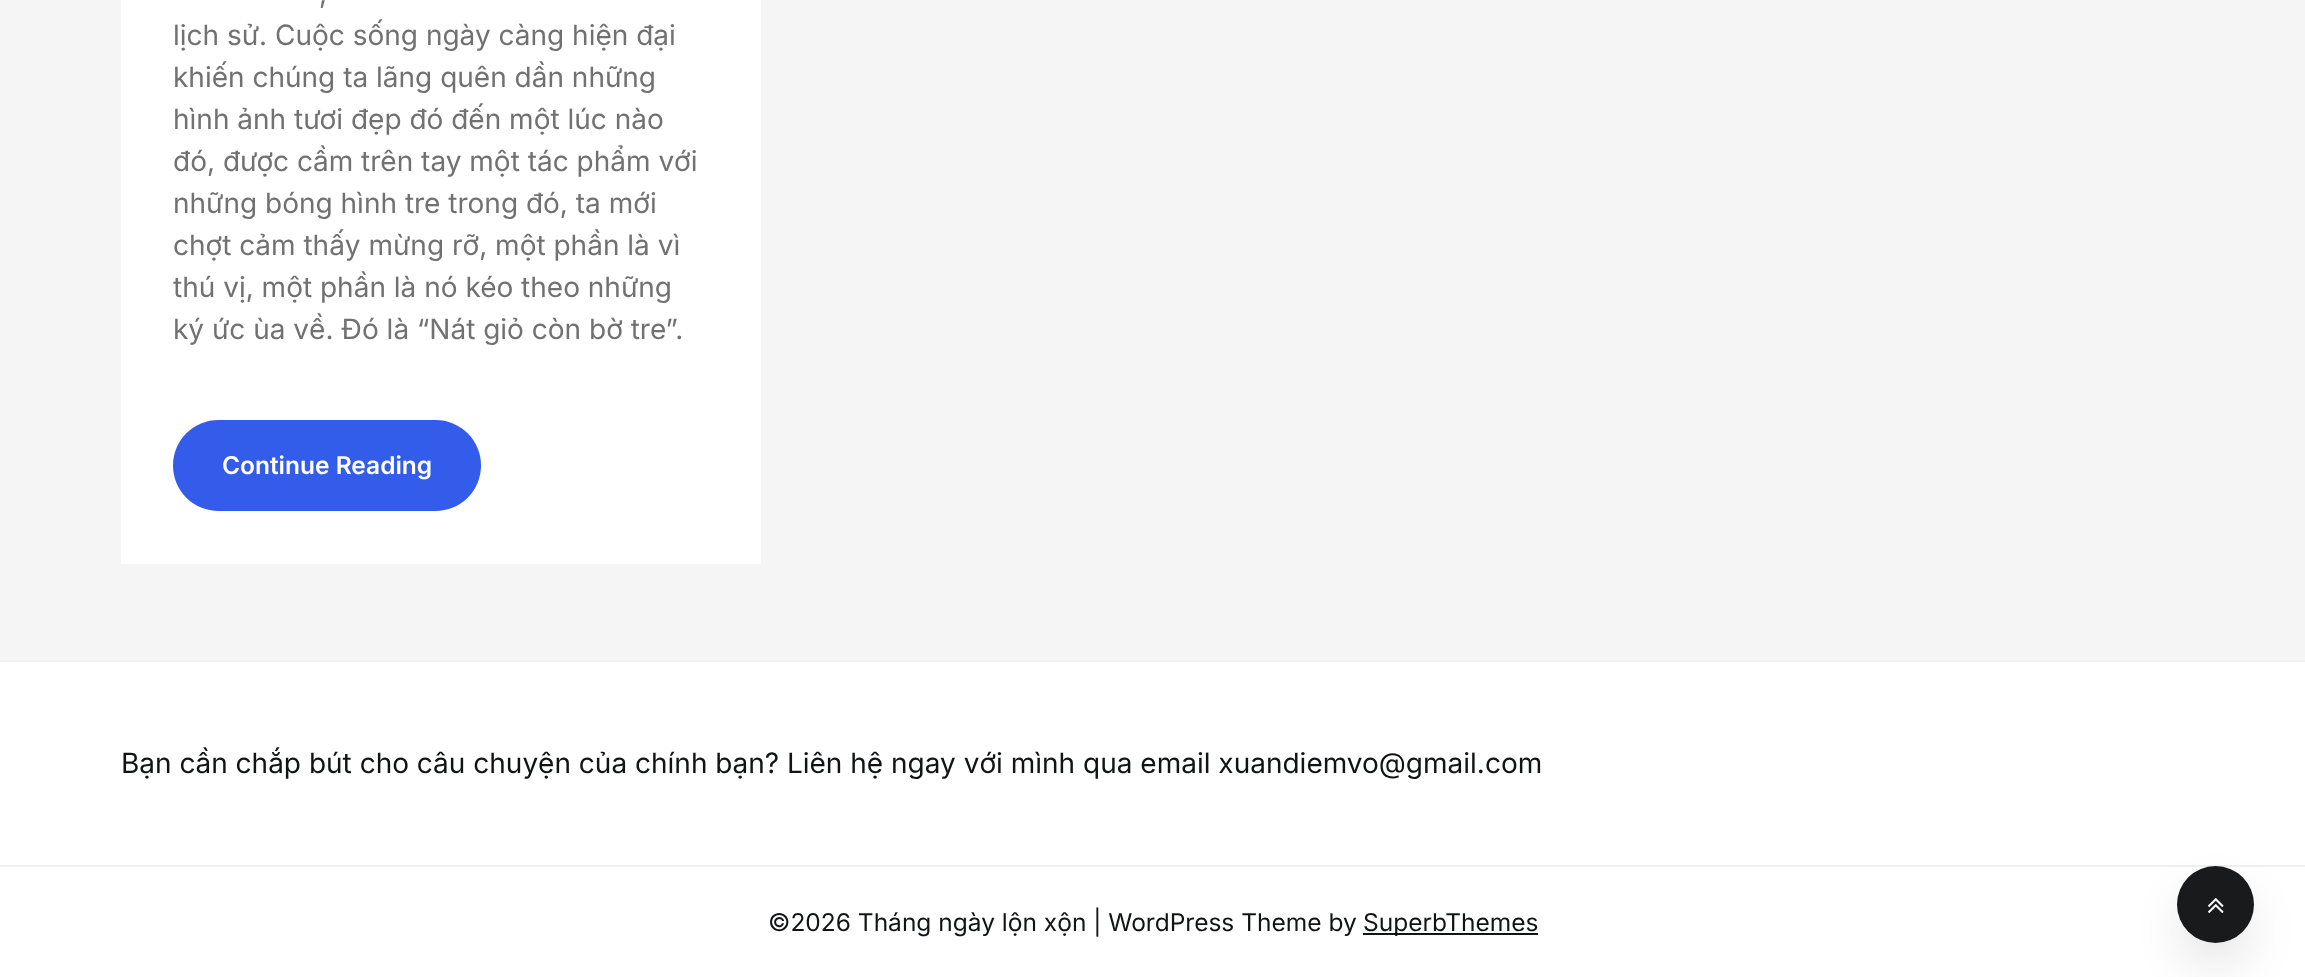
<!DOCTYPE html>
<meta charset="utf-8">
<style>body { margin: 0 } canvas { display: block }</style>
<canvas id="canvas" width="2305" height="977"></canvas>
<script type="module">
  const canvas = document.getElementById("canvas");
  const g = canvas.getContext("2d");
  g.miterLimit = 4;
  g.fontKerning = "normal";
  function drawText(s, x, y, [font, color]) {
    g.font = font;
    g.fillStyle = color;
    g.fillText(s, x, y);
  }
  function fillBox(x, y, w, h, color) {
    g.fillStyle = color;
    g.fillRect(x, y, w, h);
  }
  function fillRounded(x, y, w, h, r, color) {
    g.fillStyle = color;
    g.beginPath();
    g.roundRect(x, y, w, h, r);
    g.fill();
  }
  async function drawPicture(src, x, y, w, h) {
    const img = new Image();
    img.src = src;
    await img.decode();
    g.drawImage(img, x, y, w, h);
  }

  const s1 = ["28px Inter", "#717171"];
  const s2 = ["600 24.5px Inter", "#FFFFFF"];
  const s3 = ["28px Inter", "#111314"];
  const s4 = ["24.5px Inter", "#111314"];

  fillBox(0, 0, 2305, 977, "#F5F5F5");
  fillBox(121, 0, 640, 564, "#FFFFFF");
  drawText(",", 319, 3, s1);
  drawText("lịch sử. Cuộc sống ngày càng hiện đại", 173, 45, s1);
  drawText("khiến chúng ta lãng quên dần những", 173, 87, s1);
  drawText("hình ảnh tươi đẹp đó đến một lúc nào", 173, 129, s1);
  drawText("đó, được cầm trên tay một tác phẩm với", 173, 171, s1);
  drawText("những bóng hình tre trong đó, ta mới", 173, 213, s1);
  drawText("chợt cảm thấy mừng rỡ, một phần là vì", 173, 255, s1);
  drawText("thú vị, một phần là nó kéo theo những", 173, 297, s1);
  drawText("ký ức ùa về. Đó là “Nát giỏ còn bờ tre”.", 173, 339, s1);
  fillRounded(173, 420, 308, 91, 45.5, "#325CE9");
  drawText("Continue Reading", 222, 474, s2);
  fillBox(0, 662, 2305, 315, "#FFFFFF");
  fillBox(0, 660, 2305, 2, "#EFEFEF");
  drawText("Bạn cần chắp bút cho câu chuyện của chính bạn? Liên hệ ngay với mình qua email xuandiemvo@gmail.com", 121, 773, s3);
  fillBox(0, 865, 2305, 2, "#EFEFEF");
  drawText("©2026 Tháng ngày lộn xộn | WordPress Theme by", 768, 931, s4);
  fillBox(1363, 933, 175, 2, "#111314");
  drawText("SuperbThemes", 1363, 931, s4);
  g.save();
  g.beginPath();
  g.moveTo(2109, 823);
  g.lineTo(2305, 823);
  g.lineTo(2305, 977);
  g.lineTo(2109, 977);
  g.closePath();
  g.moveTo(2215.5, 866);
  g.bezierCurveTo(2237, 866, 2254, 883, 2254, 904.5);
  g.bezierCurveTo(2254, 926, 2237, 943, 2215.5, 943);
  g.bezierCurveTo(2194, 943, 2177, 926, 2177, 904.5);
  g.bezierCurveTo(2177, 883, 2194, 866, 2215.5, 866);
  g.closePath();
  g.clip("evenodd");
  g.fillStyle = "rgba(14, 17, 20, 0.14)";
  g.filter = "blur(24.5px)";
  g.beginPath();
  g.roundRect(2184, 898, 63, 63, 31.5);
  g.fill();
  g.filter = "none";
  g.restore();
  g.fillStyle = "rgba(17, 19, 20, 0.97)";
  g.beginPath();
  g.arc(2215.5, 904.5, 38.5, 0, Math.PI * 2);
  g.fill();
  await drawPicture("pic1.png", 2208, 898, 16, 15);
</script>
